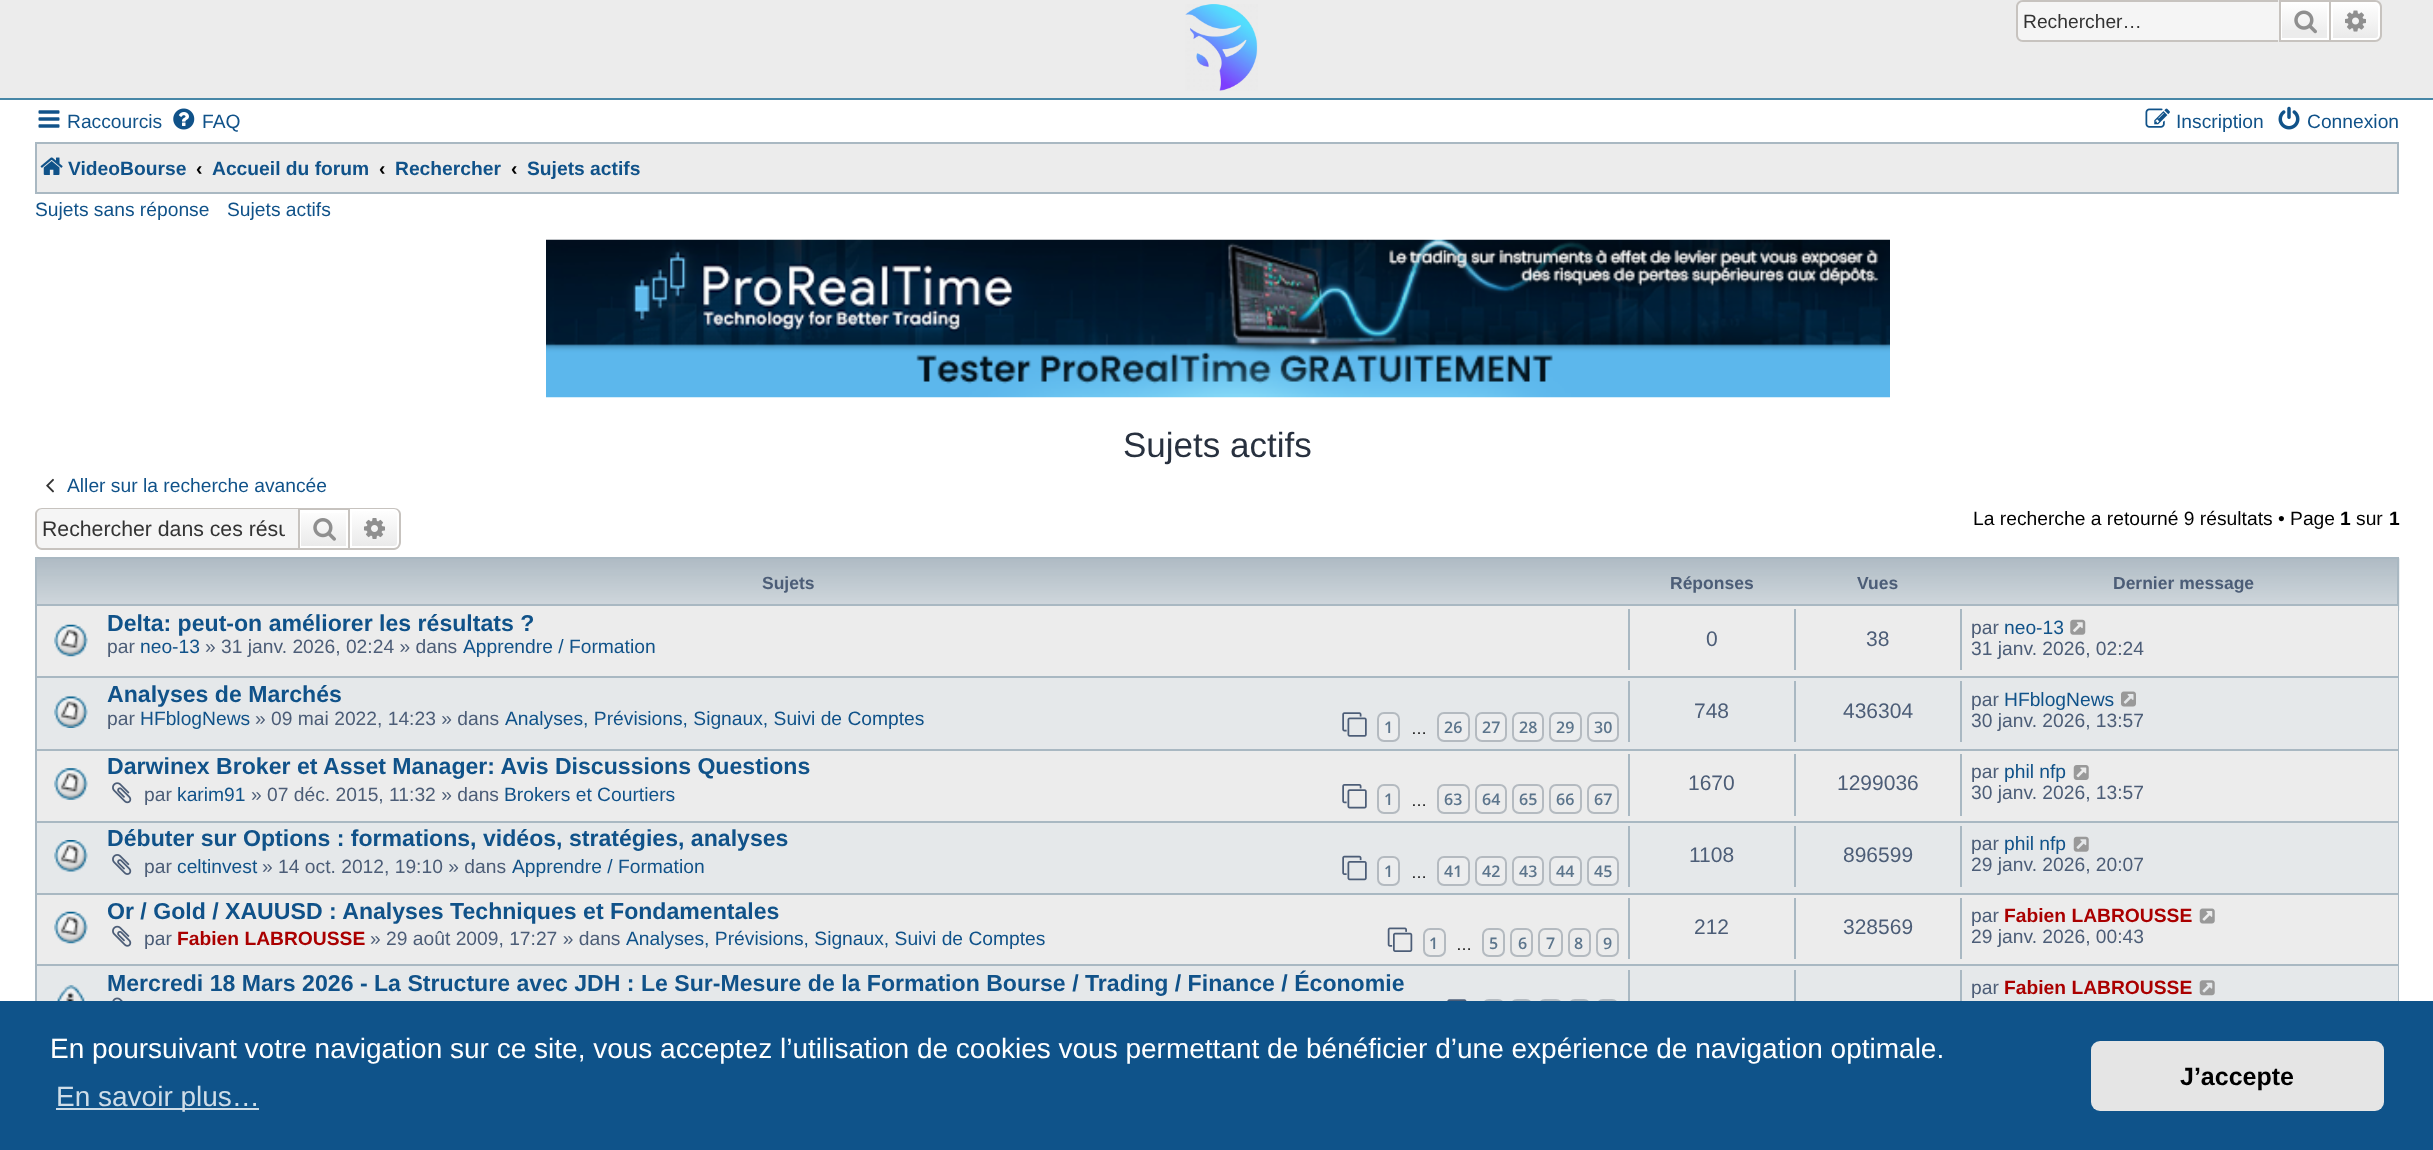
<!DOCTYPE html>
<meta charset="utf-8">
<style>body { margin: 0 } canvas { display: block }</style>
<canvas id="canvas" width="2433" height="1150"></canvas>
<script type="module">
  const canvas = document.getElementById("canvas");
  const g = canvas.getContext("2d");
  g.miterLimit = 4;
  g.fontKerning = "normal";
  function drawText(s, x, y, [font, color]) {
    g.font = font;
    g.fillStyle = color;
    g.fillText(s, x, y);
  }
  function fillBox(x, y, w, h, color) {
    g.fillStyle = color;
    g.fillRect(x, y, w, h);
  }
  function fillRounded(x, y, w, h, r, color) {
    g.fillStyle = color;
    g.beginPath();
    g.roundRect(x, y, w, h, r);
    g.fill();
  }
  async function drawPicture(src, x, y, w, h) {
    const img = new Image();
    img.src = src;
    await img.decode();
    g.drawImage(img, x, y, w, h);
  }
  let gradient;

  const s1 = ["19.25px Liberation Sans", "#333333"];
  const s2 = ["19.25px Liberation Sans", "#105289"];
  const s3 = ["bold 19.25px Liberation Sans", "#105289"];
  const s4 = ["bold 19.25px Liberation Sans", "#000000"];
  const s5 = ["35px Liberation Sans", "#28313F"];
  const s6 = ["21.25px Liberation Sans", "#333333"];
  const s7 = ["19.25px Liberation Sans", "#000000"];
  const s8 = ["bold 17.5px Liberation Sans", "#4C5D77"];
  const s9 = ["bold 23.1px Liberation Sans", "#105289"];
  const s10 = ["19.25px Liberation Sans", "#4C5D77"];
  const s11 = ["21px Liberation Sans", "#4C5D77"];
  const s12 = ["600 16px Open Sans", "#5C758C"];
  const s13 = ["16px Liberation Sans", "#000000"];
  const s14 = ["bold 19.25px Liberation Sans", "#AA0000"];
  const s15 = ["28px Liberation Sans", "#FFFFFF"];
  const s16 = ["28px Liberation Sans", "#CFDDE8"];
  const s17 = ["bold 25px Liberation Sans", "#000000"];

  fillBox(0, 0, 2433, 1150, "#FFFFFF");
  fillBox(0, 0, 2433, 98, "#ECECEC");
  fillBox(0, 98, 2433, 2, "#4787A7");
  await drawPicture("pic1.png", 1185, 4, 73, 87);
  g.fillStyle = "#F5F5F5";
  g.beginPath();
  g.roundRect(2018, 2, 261, 38, [5, 0, 0, 5]);
  g.fill();
  g.fillStyle = "#C7C3BF";
  g.beginPath();
  g.moveTo(2023, 0);
  g.lineTo(2278, 0);
  g.lineTo(2278, 42);
  g.lineTo(2023, 42);
  g.bezierCurveTo(2019, 42, 2016, 39, 2016, 35);
  g.lineTo(2016, 7);
  g.bezierCurveTo(2016, 3, 2019, 0, 2023, 0);
  g.closePath();
  g.moveTo(2023, 2);
  g.lineTo(2278, 2);
  g.lineTo(2278, 40);
  g.lineTo(2023, 40);
  g.bezierCurveTo(2020, 40, 2018, 38, 2018, 35);
  g.lineTo(2018, 7);
  g.bezierCurveTo(2018, 4, 2020, 2, 2023, 2);
  g.closePath();
  g.fill("evenodd");
  drawText("Rechercher…", 2023, 28, s1);
  gradient = g.createLinearGradient(2305, 1.7, 2305, 40);
  gradient.addColorStop(0, "#FFFFFF");
  gradient.addColorStop(1, "#E9E9E9");
  g.fillStyle = gradient;
  g.fillRect(2282, 4, 45, 26);
  g.strokeStyle = "#FFFFFF";
  g.lineWidth = 2;
  g.strokeRect(2281, 3, 47, 36);
  g.strokeStyle = "#C7C3BF";
  g.strokeRect(2280, 1, 50, 40);
  await drawPicture("pic2.png", 2294, 10, 23, 24);
  gradient = g.createLinearGradient(2356, 1.7, 2356, 40);
  gradient.addColorStop(0, "#FFFFFF");
  gradient.addColorStop(1, "#E9E9E9");
  g.fillStyle = gradient;
  g.beginPath();
  g.roundRect(2332, 3, 47, 36, [0, 4, 4, 0]);
  g.fill();
  g.strokeStyle = "#FFFFFF";
  g.stroke();
  g.fillStyle = "#C7C3BF";
  g.beginPath();
  g.moveTo(2331, 0);
  g.lineTo(2375, 0);
  g.bezierCurveTo(2379, 0, 2382, 3, 2382, 7);
  g.lineTo(2382, 35);
  g.bezierCurveTo(2382, 39, 2379, 42, 2375, 42);
  g.lineTo(2331, 42);
  g.closePath();
  g.moveTo(2331, 2);
  g.lineTo(2375, 2);
  g.bezierCurveTo(2378, 2, 2380, 4, 2380, 7);
  g.lineTo(2380, 35);
  g.bezierCurveTo(2380, 38, 2378, 40, 2375, 40);
  g.lineTo(2331, 40);
  g.closePath();
  g.fill("evenodd");
  await drawPicture("pic3.png", 2345, 10, 21, 22);
  await drawPicture("pic4.png", 38, 110, 22, 18);
  drawText("Raccourcis", 67, 128, s2);
  await drawPicture("pic5.png", 173, 108, 22, 22);
  drawText("FAQ", 202, 128, s2);
  await drawPicture("pic6.png", 2145, 108, 25, 20);
  drawText("Inscription", 2176, 128, s2);
  await drawPicture("pic7.png", 2278, 106, 22, 24);
  drawText("Connexion", 2307, 128, s2);
  g.fillStyle = "#ECECEC";
  g.beginPath();
  g.rect(36, 143, 2362, 50);
  g.fill();
  g.strokeStyle = "#A9B8C2";
  g.stroke();
  await drawPicture("pic8.png", 40, 157, 23, 18);
  drawText("VideoBourse", 68, 175, s3);
  drawText("‹", 196, 175, s4);
  drawText("Accueil du forum", 212, 175, s3);
  drawText("‹", 379, 175, s4);
  drawText("Rechercher", 395, 175, s3);
  drawText("‹", 511, 175, s4);
  drawText("Sujets actifs", 527, 175, s3);
  drawText("Sujets sans réponse", 35, 216, s2);
  drawText("Sujets actifs", 227, 216, s2);
  await drawPicture("pic9.png", 546, 239, 1344, 159);
  drawText("Sujets actifs", 1123, 457, s5);
  await drawPicture("pic10.png", 46, 478, 8, 15);
  drawText("Aller sur la recherche avancée", 67, 492, s2);
  g.fillStyle = "#F5F5F5";
  g.beginPath();
  g.roundRect(37, 509, 261, 39, [5, 0, 0, 5]);
  g.fill();
  g.fillStyle = "#C7C3BF";
  g.beginPath();
  g.moveTo(42, 508);
  g.lineTo(298, 508);
  g.lineTo(298, 550);
  g.lineTo(42, 550);
  g.bezierCurveTo(38, 550, 35, 546, 35, 542);
  g.lineTo(35, 514);
  g.bezierCurveTo(35, 511, 38, 508, 42, 508);
  g.closePath();
  g.moveTo(42, 509);
  g.lineTo(298, 509);
  g.lineTo(298, 548);
  g.lineTo(42, 548);
  g.bezierCurveTo(39, 548, 37, 545, 37, 542);
  g.lineTo(37, 514);
  g.bezierCurveTo(37, 512, 39, 509, 42, 509);
  g.closePath();
  g.fill("evenodd");
  g.save();
  g.beginPath();
  g.rect(42, 516, 243, 25);
  g.clip();
  drawText("Rechercher dans ces résu", 42, 536, s6);
  g.restore();
  gradient = g.createLinearGradient(324, 509, 324, 548);
  gradient.addColorStop(0, "#FFFFFF");
  gradient.addColorStop(1, "#E9E9E9");
  g.fillStyle = gradient;
  g.fillRect(301, 513, 45, 33);
  g.strokeStyle = "#C7C3BF";
  g.strokeRect(299, 509, 50, 40);
  await drawPicture("pic11.png", 313, 518, 23, 23);
  gradient = g.createLinearGradient(375, 509, 375, 548);
  gradient.addColorStop(0, "#FFFFFF");
  gradient.addColorStop(1, "#E9E9E9");
  g.fillStyle = gradient;
  g.beginPath();
  g.roundRect(351, 510, 47, 37, [0, 4, 4, 0]);
  g.fill();
  g.strokeStyle = "#FFFFFF";
  g.stroke();
  g.fillStyle = "#C7C3BF";
  g.beginPath();
  g.moveTo(350, 508);
  g.lineTo(394, 508);
  g.bezierCurveTo(398, 508, 401, 511, 401, 514);
  g.lineTo(401, 542);
  g.bezierCurveTo(401, 546, 398, 550, 394, 550);
  g.lineTo(350, 550);
  g.closePath();
  g.moveTo(350, 509);
  g.lineTo(394, 509);
  g.bezierCurveTo(397, 509, 399, 512, 399, 514);
  g.lineTo(399, 542);
  g.bezierCurveTo(399, 545, 397, 548, 394, 548);
  g.lineTo(350, 548);
  g.closePath();
  g.fill("evenodd");
  await drawPicture("pic12.png", 364, 518, 21, 21);
  drawText("La recherche a retourné 9 résultats • Page", 1973, 525, s7);
  drawText("1", 2340, 525, s4);
  drawText("sur", 2356, 525, s7);
  drawText("1", 2389, 525, s4);
  await drawPicture("pic13.png", 37, 558, 2363, 53);
  g.strokeStyle = "#A9B8C2";
  g.strokeRect(36, 558, 2362, 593);
  drawText("Sujets", 762, 589, s8);
  drawText("Réponses", 1670, 589, s8);
  drawText("Vues", 1857, 589, s8);
  drawText("Dernier message", 2113, 589, s8);
  fillBox(37, 606, 2361, 70, "#ECECEC");
  fillBox(37, 604, 2361, 2, "#A9B8C2");
  await drawPicture("pic14.png", 54, 624, 34, 33);
  drawText("Delta: peut-on améliorer les résultats ?", 107, 631, s9);
  drawText("par", 107, 653, s10);
  drawText("neo-13", 140, 653, s2);
  drawText("» 31 janv. 2026, 02:24 » dans", 205, 653, s10);
  drawText("Apprendre / Formation", 463, 653, s2);
  fillBox(1628, 609, 2, 61, "#A9B8C2");
  drawText("0", 1706, 646, s11);
  fillBox(1794, 609, 2, 61, "#A9B8C2");
  drawText("38", 1866, 646, s11);
  fillBox(1960, 609, 2, 61, "#A9B8C2");
  drawText("par", 1971, 634, s10);
  drawText("neo-13", 2004, 634, s2);
  await drawPicture("pic15.png", 2070, 619, 16, 16);
  drawText("31 janv. 2026, 02:24", 1971, 655, s10);
  fillBox(37, 678, 2361, 71, "#E5E8EA");
  fillBox(37, 676, 2361, 2, "#A9B8C2");
  await drawPicture("pic16.png", 54, 696, 34, 32);
  drawText("Analyses de Marchés", 107, 702, s9);
  drawText("par", 107, 725, s10);
  drawText("HFblogNews", 140, 725, s2);
  drawText("» 09 mai 2022, 14:23 » dans", 255, 725, s10);
  drawText("Analyses, Prévisions, Signaux, Suivi de Comptes", 505, 725, s2);
  await drawPicture("pic17.png", 1342, 712, 25, 25);
  g.fillStyle = "#ECEDEE";
  g.beginPath();
  g.roundRect(1378, 713, 21, 28, 6);
  g.fill();
  g.strokeStyle = "#B4BAC0";
  g.stroke();
  drawText("1", 1384, 733, s12);
  drawText("…", 1411, 734, s13);
  g.fillStyle = "#ECEDEE";
  g.beginPath();
  g.roundRect(1438, 713, 31, 28, 6);
  g.fill();
  g.stroke();
  drawText("26", 1444, 733, s12);
  g.fillStyle = "#ECEDEE";
  g.beginPath();
  g.roundRect(1476, 713, 30, 28, 6);
  g.fill();
  g.stroke();
  drawText("27", 1482, 733, s12);
  g.fillStyle = "#ECEDEE";
  g.beginPath();
  g.roundRect(1513, 713, 30, 28, 6);
  g.fill();
  g.stroke();
  drawText("28", 1519, 733, s12);
  g.fillStyle = "#ECEDEE";
  g.beginPath();
  g.roundRect(1550, 713, 31, 28, 6);
  g.fill();
  g.stroke();
  drawText("29", 1556, 733, s12);
  g.fillStyle = "#ECEDEE";
  g.beginPath();
  g.roundRect(1588, 713, 30, 28, 6);
  g.fill();
  g.stroke();
  drawText("30", 1594, 733, s12);
  fillBox(1628, 681, 2, 61, "#A9B8C2");
  drawText("748", 1694, 718, s11);
  fillBox(1794, 681, 2, 61, "#A9B8C2");
  drawText("436304", 1843, 718, s11);
  fillBox(1960, 681, 2, 61, "#A9B8C2");
  drawText("par", 1971, 706, s10);
  drawText("HFblogNews", 2004, 706, s2);
  await drawPicture("pic18.png", 2121, 691, 15, 16);
  drawText("30 janv. 2026, 13:57", 1971, 727, s10);
  fillBox(37, 751, 2361, 70, "#ECECEC");
  fillBox(37, 749, 2361, 2, "#A9B8C2");
  await drawPicture("pic19.png", 54, 768, 34, 32);
  drawText("Darwinex Broker et Asset Manager: Avis Discussions Questions", 107, 774, s9);
  await drawPicture("pic20.png", 112, 782, 20, 22);
  drawText("par", 144, 801, s10);
  drawText("karim91", 177, 801, s2);
  drawText("» 07 déc. 2015, 11:32 » dans", 251, 801, s10);
  drawText("Brokers et Courtiers", 504, 801, s2);
  await drawPicture("pic21.png", 1342, 784, 25, 25);
  g.beginPath();
  g.roundRect(1378, 785, 21, 28, 6);
  g.stroke();
  drawText("1", 1384, 805, s12);
  drawText("…", 1411, 806, s13);
  g.beginPath();
  g.roundRect(1438, 785, 31, 28, 6);
  g.stroke();
  drawText("63", 1444, 805, s12);
  g.beginPath();
  g.roundRect(1476, 785, 30, 28, 6);
  g.stroke();
  drawText("64", 1482, 805, s12);
  g.beginPath();
  g.roundRect(1513, 785, 30, 28, 6);
  g.stroke();
  drawText("65", 1519, 805, s12);
  g.beginPath();
  g.roundRect(1550, 785, 31, 28, 6);
  g.stroke();
  drawText("66", 1556, 805, s12);
  g.beginPath();
  g.roundRect(1588, 785, 30, 28, 6);
  g.stroke();
  drawText("67", 1594, 805, s12);
  fillBox(1628, 754, 2, 62, "#A9B8C2");
  drawText("1670", 1688, 790, s11);
  fillBox(1794, 754, 2, 62, "#A9B8C2");
  drawText("1299036", 1837, 790, s11);
  fillBox(1960, 754, 2, 62, "#A9B8C2");
  drawText("par", 1971, 778, s10);
  drawText("phil nfp", 2004, 778, s2);
  await drawPicture("pic22.png", 2073, 765, 16, 15);
  drawText("30 janv. 2026, 13:57", 1971, 799, s10);
  fillBox(37, 823, 2361, 70, "#E5E8EA");
  fillBox(37, 821, 2361, 2, "#A9B8C2");
  await drawPicture("pic23.png", 54, 840, 34, 32);
  drawText("Débuter sur Options : formations, vidéos, stratégies, analyses", 107, 846, s9);
  await drawPicture("pic24.png", 112, 854, 20, 21);
  drawText("par", 144, 873, s10);
  drawText("celtinvest", 177, 873, s2);
  drawText("» 14 oct. 2012, 19:10 » dans", 262, 873, s10);
  drawText("Apprendre / Formation", 512, 873, s2);
  await drawPicture("pic25.png", 1342, 855, 25, 26);
  g.fillStyle = "#ECEDEE";
  g.beginPath();
  g.roundRect(1378, 857, 21, 28, 6);
  g.fill();
  g.stroke();
  drawText("1", 1384, 877, s12);
  drawText("…", 1411, 878, s13);
  g.fillStyle = "#ECEDEE";
  g.beginPath();
  g.roundRect(1438, 857, 31, 28, 6);
  g.fill();
  g.stroke();
  drawText("41", 1444, 877, s12);
  g.fillStyle = "#ECEDEE";
  g.beginPath();
  g.roundRect(1476, 857, 30, 28, 6);
  g.fill();
  g.stroke();
  drawText("42", 1482, 877, s12);
  g.fillStyle = "#ECEDEE";
  g.beginPath();
  g.roundRect(1513, 857, 30, 28, 6);
  g.fill();
  g.stroke();
  drawText("43", 1519, 877, s12);
  g.fillStyle = "#ECEDEE";
  g.beginPath();
  g.roundRect(1550, 857, 31, 28, 6);
  g.fill();
  g.stroke();
  drawText("44", 1556, 877, s12);
  g.fillStyle = "#ECEDEE";
  g.beginPath();
  g.roundRect(1588, 857, 30, 28, 6);
  g.fill();
  g.stroke();
  drawText("45", 1594, 877, s12);
  fillBox(1628, 826, 2, 61, "#A9B8C2");
  drawText("1108", 1689, 862, s11);
  fillBox(1794, 826, 2, 61, "#A9B8C2");
  drawText("896599", 1843, 862, s11);
  fillBox(1960, 826, 2, 61, "#A9B8C2");
  drawText("par", 1971, 850, s10);
  drawText("phil nfp", 2004, 850, s2);
  await drawPicture("pic26.png", 2073, 836, 16, 16);
  drawText("29 janv. 2026, 20:07", 1971, 871, s10);
  fillBox(37, 895, 2361, 69, "#ECECEC");
  fillBox(37, 893, 2361, 2, "#A9B8C2");
  await drawPicture("pic27.png", 54, 911, 34, 33);
  drawText("Or / Gold / XAUUSD : Analyses Techniques et Fondamentales", 107, 919, s9);
  await drawPicture("pic28.png", 112, 925, 20, 22);
  drawText("par", 144, 945, s10);
  drawText("Fabien LABROUSSE", 177, 945, s14);
  drawText("» 29 août 2009, 17:27 » dans", 370, 945, s10);
  drawText("Analyses, Prévisions, Signaux, Suivi de Comptes", 626, 945, s2);
  await drawPicture("pic29.png", 1387, 927, 26, 25);
  g.beginPath();
  g.roundRect(1424, 929, 21, 27, 6);
  g.stroke();
  drawText("1", 1429, 949, s12);
  drawText("…", 1456, 950, s13);
  g.beginPath();
  g.roundRect(1483, 929, 21, 27, 6);
  g.stroke();
  drawText("5", 1489, 949, s12);
  g.beginPath();
  g.roundRect(1511, 929, 21, 27, 6);
  g.stroke();
  drawText("6", 1518, 949, s12);
  g.beginPath();
  g.roundRect(1539, 929, 23, 27, 6);
  g.stroke();
  drawText("7", 1546, 949, s12);
  g.beginPath();
  g.roundRect(1569, 929, 21, 27, 6);
  g.stroke();
  drawText("8", 1574, 949, s12);
  g.beginPath();
  g.roundRect(1597, 929, 21, 27, 6);
  g.stroke();
  drawText("9", 1603, 949, s12);
  fillBox(1628, 898, 2, 61, "#A9B8C2");
  drawText("212", 1694, 934, s11);
  fillBox(1794, 898, 2, 61, "#A9B8C2");
  drawText("328569", 1843, 934, s11);
  fillBox(1960, 898, 2, 61, "#A9B8C2");
  drawText("par", 1971, 922, s10);
  drawText("Fabien LABROUSSE", 2004, 922, s14);
  await drawPicture("pic30.png", 2199, 908, 16, 16);
  drawText("29 janv. 2026, 00:43", 1971, 943, s10);
  fillBox(37, 966, 2361, 35, "#E5E8EA");
  fillBox(37, 964, 2361, 2, "#A9B8C2");
  await drawPicture("pic31.png", 55, 985, 32, 16);
  drawText("Mercredi 18 Mars 2026 - La Structure avec JDH : Le Sur-Mesure de la Formation Bourse / Trading / Finance / Économie", 107, 991, s9);
  await drawPicture("pic32.png", 112, 997, 11, 4);
  await drawPicture("pic33.png", 1447, 999, 20, 2);
  g.beginPath();
  g.roundRect(1483, 1000, 21, 28, 6);
  g.stroke();
  g.beginPath();
  g.roundRect(1511, 1000, 21, 28, 6);
  g.stroke();
  g.beginPath();
  g.roundRect(1539, 1000, 23, 28, 6);
  g.stroke();
  g.beginPath();
  g.roundRect(1569, 1000, 21, 28, 6);
  g.stroke();
  g.beginPath();
  g.roundRect(1597, 1000, 21, 28, 6);
  g.stroke();
  fillBox(1628, 970, 2, 31, "#A9B8C2");
  fillBox(1794, 970, 2, 31, "#A9B8C2");
  fillBox(1960, 970, 2, 31, "#A9B8C2");
  drawText("par", 1971, 994, s10);
  drawText("Fabien LABROUSSE", 2004, 994, s14);
  await drawPicture("pic34.png", 2199, 980, 16, 16);
  fillBox(0, 1001, 2433, 149, "#0F538A");
  drawText("En poursuivant votre navigation sur ce site, vous acceptez l’utilisation de cookies vous permettant de bénéficier d’une expérience de navigation optimale.", 50, 1058, s15);
  fillBox(56, 1108, 203, 2, "#CFDDE8");
  drawText("En savoir plus…", 56, 1106, s16);
  fillRounded(2091, 1041, 293, 70, 9, "#E5E5E5");
  drawText("J’accepte", 2180, 1085, s17);
</script>
